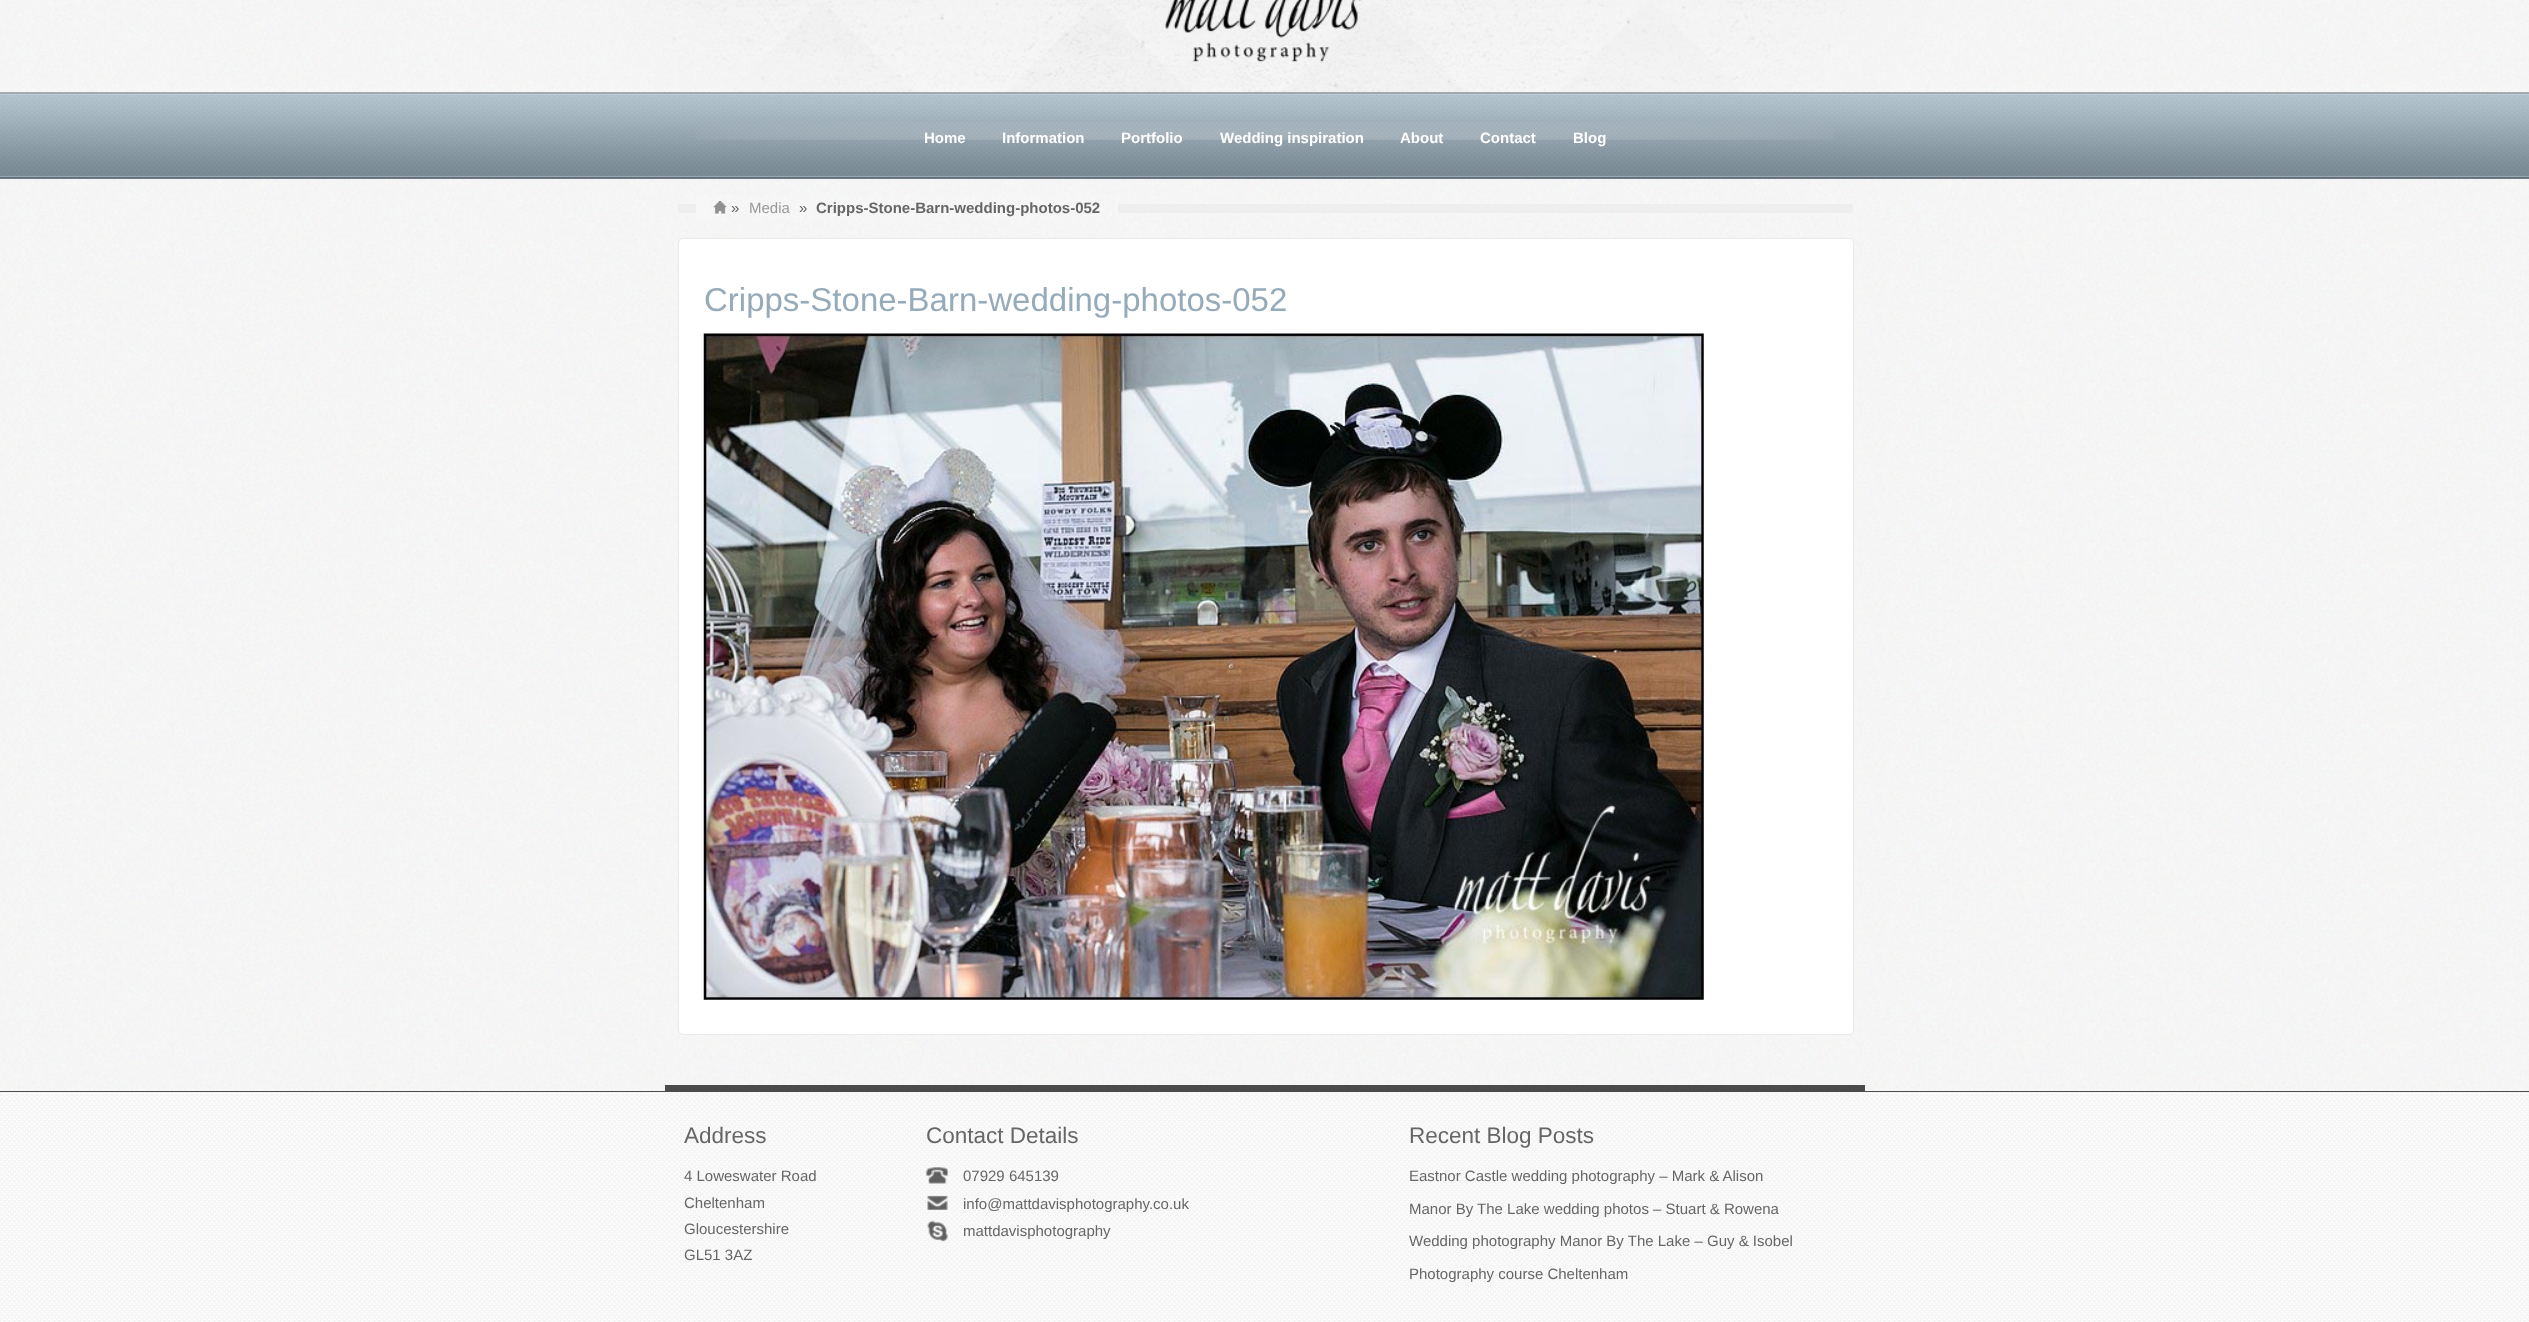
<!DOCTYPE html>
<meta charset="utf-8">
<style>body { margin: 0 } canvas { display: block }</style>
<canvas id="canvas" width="2529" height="1322"></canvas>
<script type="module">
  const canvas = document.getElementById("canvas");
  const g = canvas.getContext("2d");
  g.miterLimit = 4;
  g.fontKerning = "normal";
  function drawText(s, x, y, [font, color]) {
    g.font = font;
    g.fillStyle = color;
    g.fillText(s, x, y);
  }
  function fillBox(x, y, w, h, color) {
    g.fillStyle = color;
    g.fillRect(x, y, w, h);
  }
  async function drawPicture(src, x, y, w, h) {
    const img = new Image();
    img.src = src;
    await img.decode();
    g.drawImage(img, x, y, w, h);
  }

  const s1 = ["bold 15px Liberation Sans", "#FFFFFF"];
  const s2 = ["15px Liberation Sans", "#666666"];
  const s3 = ["15px Liberation Sans", "#999999"];
  const s4 = ["bold 15px Liberation Sans", "#666666"];
  const s5 = ["33px Liberation Sans", "#96ABBA"];
  const s6 = ["22.5px Liberation Sans", "#666666"];

  fillBox(0, 0, 2529, 1322, "#FFFFFF");
  await drawPicture("pic1.png", 0, 0, 2529, 1091);
  await drawPicture("pic2.png", 546, 0, 1438, 93);
  await drawPicture("pic3.png", 1165, 0, 197, 63);
  fillBox(0, 93, 2529, 86, "#96ABBA");
  await drawPicture("pic4.png", 0, 92, 2529, 87);
  await drawPicture("pic5.png", 696, 122, 1138, 18);
  drawText("Home", 924, 143, s1);
  drawText("Information", 1002, 143, s1);
  drawText("Portfolio", 1121, 143, s1);
  drawText("Wedding inspiration", 1220, 143, s1);
  drawText("About", 1400, 143, s1);
  drawText("Contact", 1480, 143, s1);
  drawText("Blog", 1573, 143, s1);
  fillBox(665, 1085, 1200, 6, "#4B4B4B");
  fillBox(678, 204, 1175, 9, "#EEEEEE");
  fillBox(696, 195, 422, 26, "#F7F7F7");
  await drawPicture("pic6.png", 709, 195, 407, 26);
  await drawPicture("pic7.png", 713, 201, 14, 13);
  drawText("»", 731, 213, s2);
  drawText("Media", 749, 213, s3);
  drawText("»", 799, 213, s2);
  drawText("Cripps-Stone-Barn-wedding-photos-052", 816, 213, s4);
  g.fillStyle = "#FFFFFF";
  g.beginPath();
  g.roundRect(678.5, 238.5, 1175, 796, 4.5);
  g.fill();
  g.strokeStyle = "#EAEAEA";
  g.stroke();
  drawText("Cripps-Stone-Barn-wedding-photos-052", 704, 311, s5);
  await drawPicture("pic8.png", 703, 333, 1001, 667);
  await drawPicture("pic9.png", 0, 1092, 2529, 230);
  fillBox(0, 1091, 2529, 1, "#4B4B4B");
  drawText("Address", 684, 1143, s6);
  drawText("4 Loweswater Road", 684, 1181, s2);
  drawText("Cheltenham", 684, 1208, s2);
  drawText("Gloucestershire", 684, 1234, s2);
  drawText("GL51 3AZ", 684, 1260, s2);
  drawText("Contact Details", 926, 1143, s6);
  await drawPicture("pic10.png", 926, 1167, 22, 17);
  drawText("07929 645139", 963, 1181, s2);
  await drawPicture("pic11.png", 927, 1195, 21, 15);
  drawText("info@mattdavisphotography.co.uk", 963, 1209, s2);
  await drawPicture("pic12.png", 927, 1220, 21, 22);
  drawText("mattdavisphotography", 963, 1236, s2);
  drawText("Recent Blog Posts", 1409, 1143, s6);
  drawText("Eastnor Castle wedding photography – Mark & Alison", 1409, 1181, s2);
  drawText("Manor By The Lake wedding photos – Stuart & Rowena", 1409, 1214, s2);
  drawText("Wedding photography Manor By The Lake – Guy & Isobel", 1409, 1246, s2);
  drawText("Photography course Cheltenham", 1409, 1279, s2);
</script>
